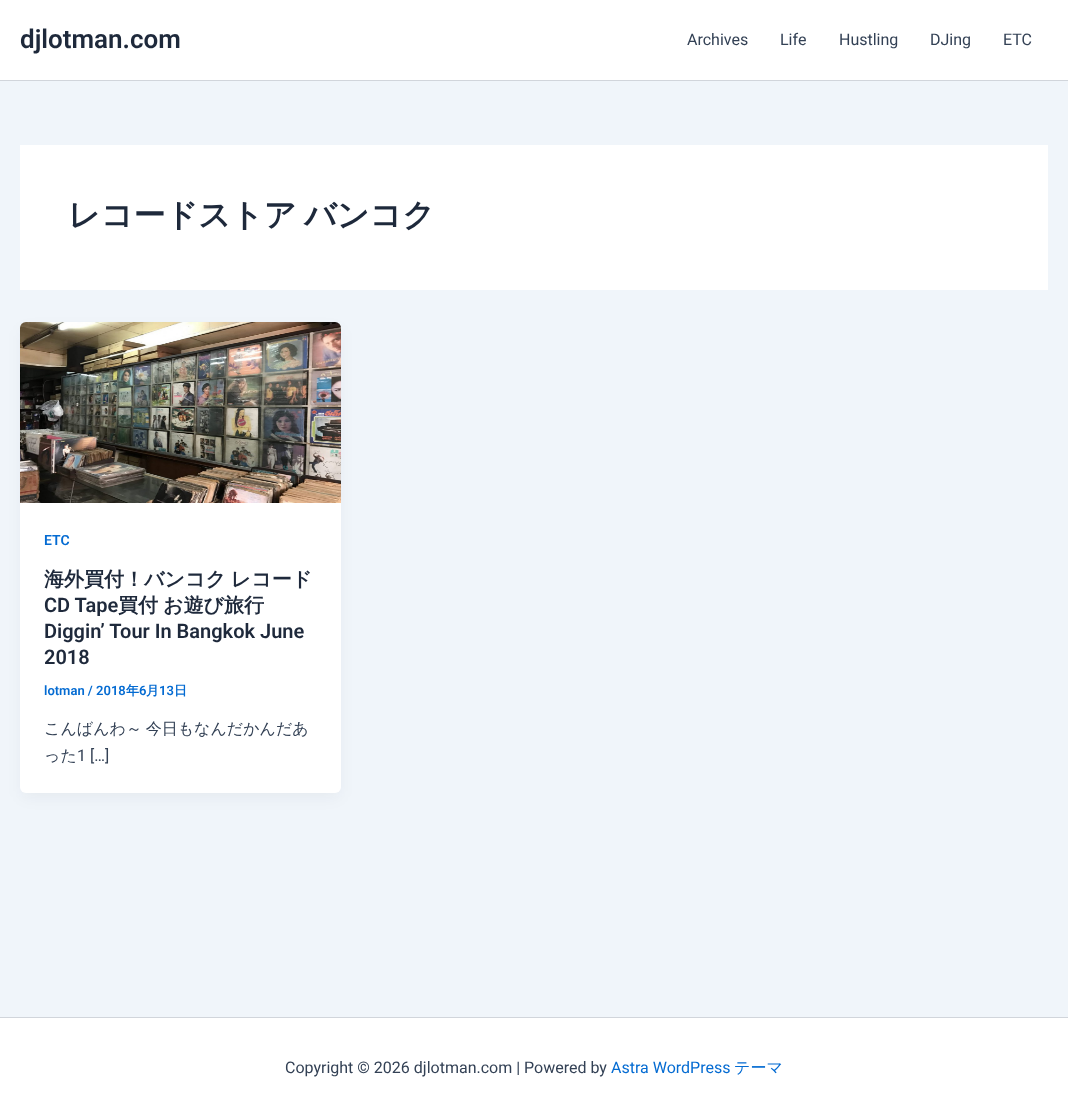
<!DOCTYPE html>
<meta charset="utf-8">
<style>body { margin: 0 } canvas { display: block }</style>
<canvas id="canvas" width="1068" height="1118"></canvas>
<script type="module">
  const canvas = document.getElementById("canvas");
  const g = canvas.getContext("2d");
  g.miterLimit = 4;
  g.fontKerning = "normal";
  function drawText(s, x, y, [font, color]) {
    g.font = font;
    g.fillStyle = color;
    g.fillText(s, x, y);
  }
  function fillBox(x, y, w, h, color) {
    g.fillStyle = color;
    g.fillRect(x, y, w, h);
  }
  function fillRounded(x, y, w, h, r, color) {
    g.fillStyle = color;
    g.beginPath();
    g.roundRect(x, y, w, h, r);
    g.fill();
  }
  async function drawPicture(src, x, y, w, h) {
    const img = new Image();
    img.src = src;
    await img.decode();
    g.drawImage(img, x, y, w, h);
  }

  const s1 = ["600 26px Roboto", "#1E293B"];
  const s2 = ["16px Roboto", "#334155"];
  const s3 = ["bold 32px WenQuanYi Zen Hei", "#1E293B"];
  const s4 = ["600 14px Roboto", "#046BD2"];
  const s5 = ["bold 20px WenQuanYi Zen Hei", "#1E293B"];
  const s6 = ["600 20px Roboto", "#1E293B"];
  const s7 = ["600 13px Roboto", "#046BD2"];
  const s8 = ["bold 13px WenQuanYi Zen Hei", "#046BD2"];
  const s9 = ["500 16px WenQuanYi Zen Hei", "#334155"];
  const s10 = ["16px Roboto", "#046BD2"];
  const s11 = ["500 16px WenQuanYi Zen Hei", "#046BD2"];

  fillBox(0, 0, 1068, 1118, "#F0F5FA");
  fillBox(0, 0, 1068, 80, "#FFFFFF");
  fillBox(0, 80, 1068, 1, "#D1D5DB");
  drawText("djlotman.com", 20, 48, s1);
  drawText("Archives", 687, 45, s2);
  drawText("Life", 780, 45, s2);
  drawText("Hustling", 839, 45, s2);
  drawText("DJing", 930, 45, s2);
  drawText("ETC", 1003, 45, s2);
  fillBox(20, 145, 1028, 145, "#FFFFFF");
  g.wordSpacing = "-2px";
  drawText("レコードストア バンコク", 68, 226, s3);
  g.fillStyle = "rgba(16, 24, 40, 0.05)";
  g.filter = "blur(7.5px)";
  g.beginPath();
  g.roundRect(22, 330, 317, 467, 4);
  g.fill();
  g.filter = "none";
  fillRounded(20, 322, 321, 471, 6, "#FFFFFF");
  await drawPicture("pic1.png", 20, 322, 321, 181);
  g.wordSpacing = "0px";
  drawText("ETC", 44, 545, s4);
  g.wordSpacing = "-1px";
  drawText("海外買付！バンコク レコード", 44, 586, s5);
  g.wordSpacing = "0px";
  drawText("CD Tape", 44, 612, s6);
  drawText("買付", 118, 612, s5);
  drawText("お遊び旅行", 163, 612, s5);
  drawText("Diggin’ Tour In Bangkok June", 44, 638, s6);
  drawText("2018", 44, 664, s6);
  drawText("lotman / 2018", 44, 695, s7);
  drawText("年", 126, 695, s8);
  drawText("6", 139, 695, s7);
  drawText("月", 146, 695, s8);
  drawText("13", 159, 695, s7);
  drawText("日", 174, 695, s8);
  g.wordSpacing = "-1px";
  drawText("こんばんわ～ 今日もなんだかんだあ", 44, 734, s9);
  g.wordSpacing = "0px";
  drawText("った", 44, 761, s9);
  drawText("1 […]", 77, 761, s2);
  fillBox(0, 1018, 1068, 100, "#FFFFFF");
  fillBox(0, 1017, 1068, 1, "#D1D5DB");
  drawText("Copyright © 2026 djlotman.com | Powered by", 285, 1073, s2);
  drawText("Astra WordPress", 611, 1073, s10);
  drawText("テーマ", 734, 1073, s11);
</script>
